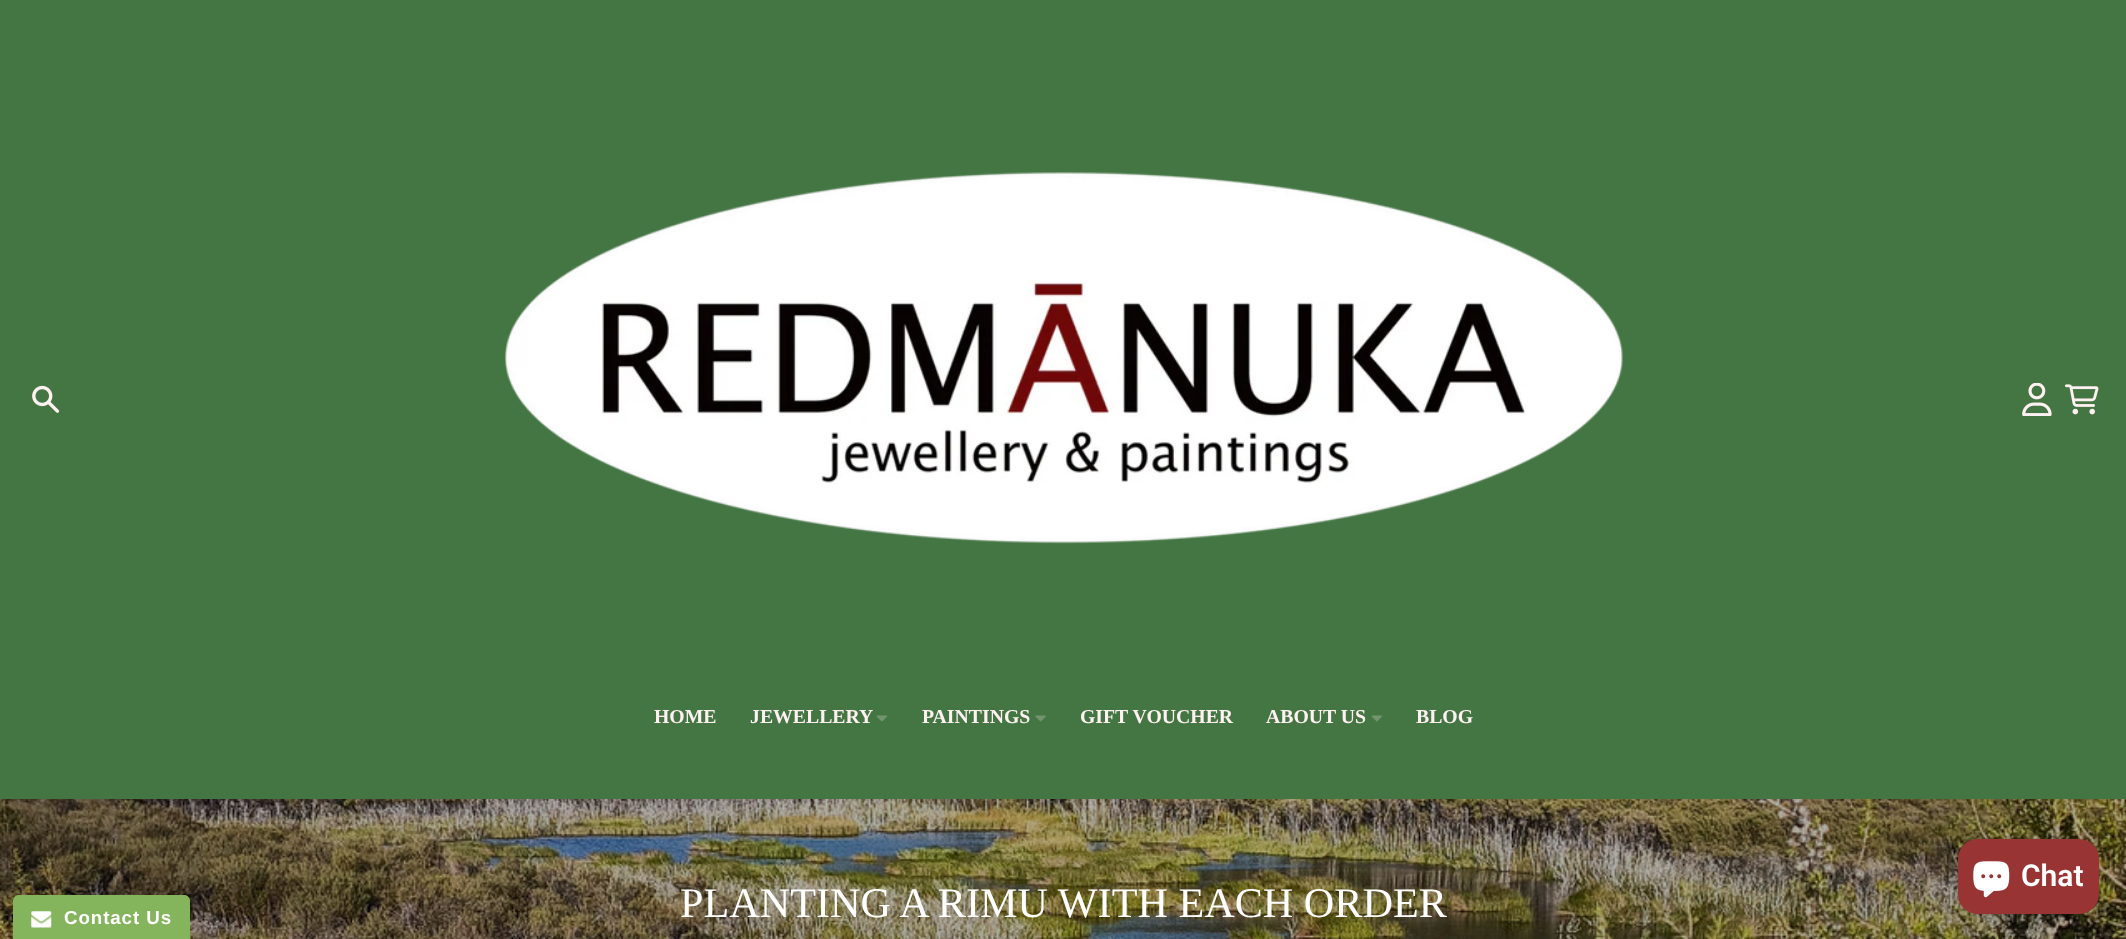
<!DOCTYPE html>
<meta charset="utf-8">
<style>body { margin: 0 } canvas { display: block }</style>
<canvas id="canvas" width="2126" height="939"></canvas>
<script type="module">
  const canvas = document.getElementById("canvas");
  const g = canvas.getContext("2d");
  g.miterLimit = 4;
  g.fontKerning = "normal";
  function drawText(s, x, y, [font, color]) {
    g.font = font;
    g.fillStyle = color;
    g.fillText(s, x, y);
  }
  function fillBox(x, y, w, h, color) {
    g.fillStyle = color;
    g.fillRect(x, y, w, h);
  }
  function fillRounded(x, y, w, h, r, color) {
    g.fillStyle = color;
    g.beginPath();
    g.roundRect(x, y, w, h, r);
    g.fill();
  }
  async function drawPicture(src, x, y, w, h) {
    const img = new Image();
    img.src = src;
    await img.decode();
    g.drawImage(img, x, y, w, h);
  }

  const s1 = ["bold 19.75px Liberation Serif", "#FFF1F1"];
  const s2 = ["600 30px Roboto", "#FFFFFF"];
  const s3 = ["bold 18.75px Liberation Sans", "#FFFFFF"];
  const s4 = ["42.2px Liberation Serif", "#FFFFFF"];

  fillBox(0, 0, 2126, 939, "#FFFFFF");
  fillBox(0, 0, 2126, 799, "#447644");
  await drawPicture("pic1.png", 32, 385, 28, 28);
  await drawPicture("pic2.png", 2022, 383, 30, 33);
  await drawPicture("pic3.png", 2065, 384, 34, 31);
  await drawPicture("pic4.png", 504, 172, 1119, 372);
  drawText("HOME", 654, 723, s1);
  drawText("JEWELLERY", 750, 723, s1);
  await drawPicture("pic5.png", 876, 715, 11, 7);
  drawText("PAINTINGS", 922, 723, s1);
  await drawPicture("pic6.png", 1035, 715, 11, 7);
  drawText("GIFT VOUCHER", 1080, 723, s1);
  drawText("ABOUT US", 1266, 723, s1);
  await drawPicture("pic5.png", 1371, 715, 11, 7);
  drawText("BLOG", 1416, 723, s1);
  await drawPicture("pic9.png", 0, 799, 2126, 140);
  g.fillStyle = "rgba(0, 0, 0, 0.15)";
  g.filter = "blur(3px)";
  g.beginPath();
  g.roundRect(1958, 839, 141, 75, 20);
  g.fill();
  g.filter = "none";
  fillRounded(1958, 839, 141, 75, 20, "#983434");
  await drawPicture("pic7.png", 1973, 861, 37, 37);
  drawText("Chat", 2021, 886, s2);
  g.fillStyle = "#84B45B";
  g.beginPath();
  g.moveTo(19, 895);
  g.lineTo(184, 895);
  g.bezierCurveTo(187.5, 895, 190, 897.5, 190, 901);
  g.lineTo(190, 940);
  g.lineTo(13, 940);
  g.lineTo(13, 901);
  g.bezierCurveTo(13, 897.5, 15.5, 895, 19, 895);
  g.closePath();
  g.fill();
  await drawPicture("pic8.png", 31, 911, 21, 17);
  g.letterSpacing = "0.9px";
  drawText("Contact Us", 64, 924, s3);
  g.letterSpacing = "0px";
  drawText("PLANTING A RIMU WITH EACH ORDER", 680, 917, s4);
</script>
